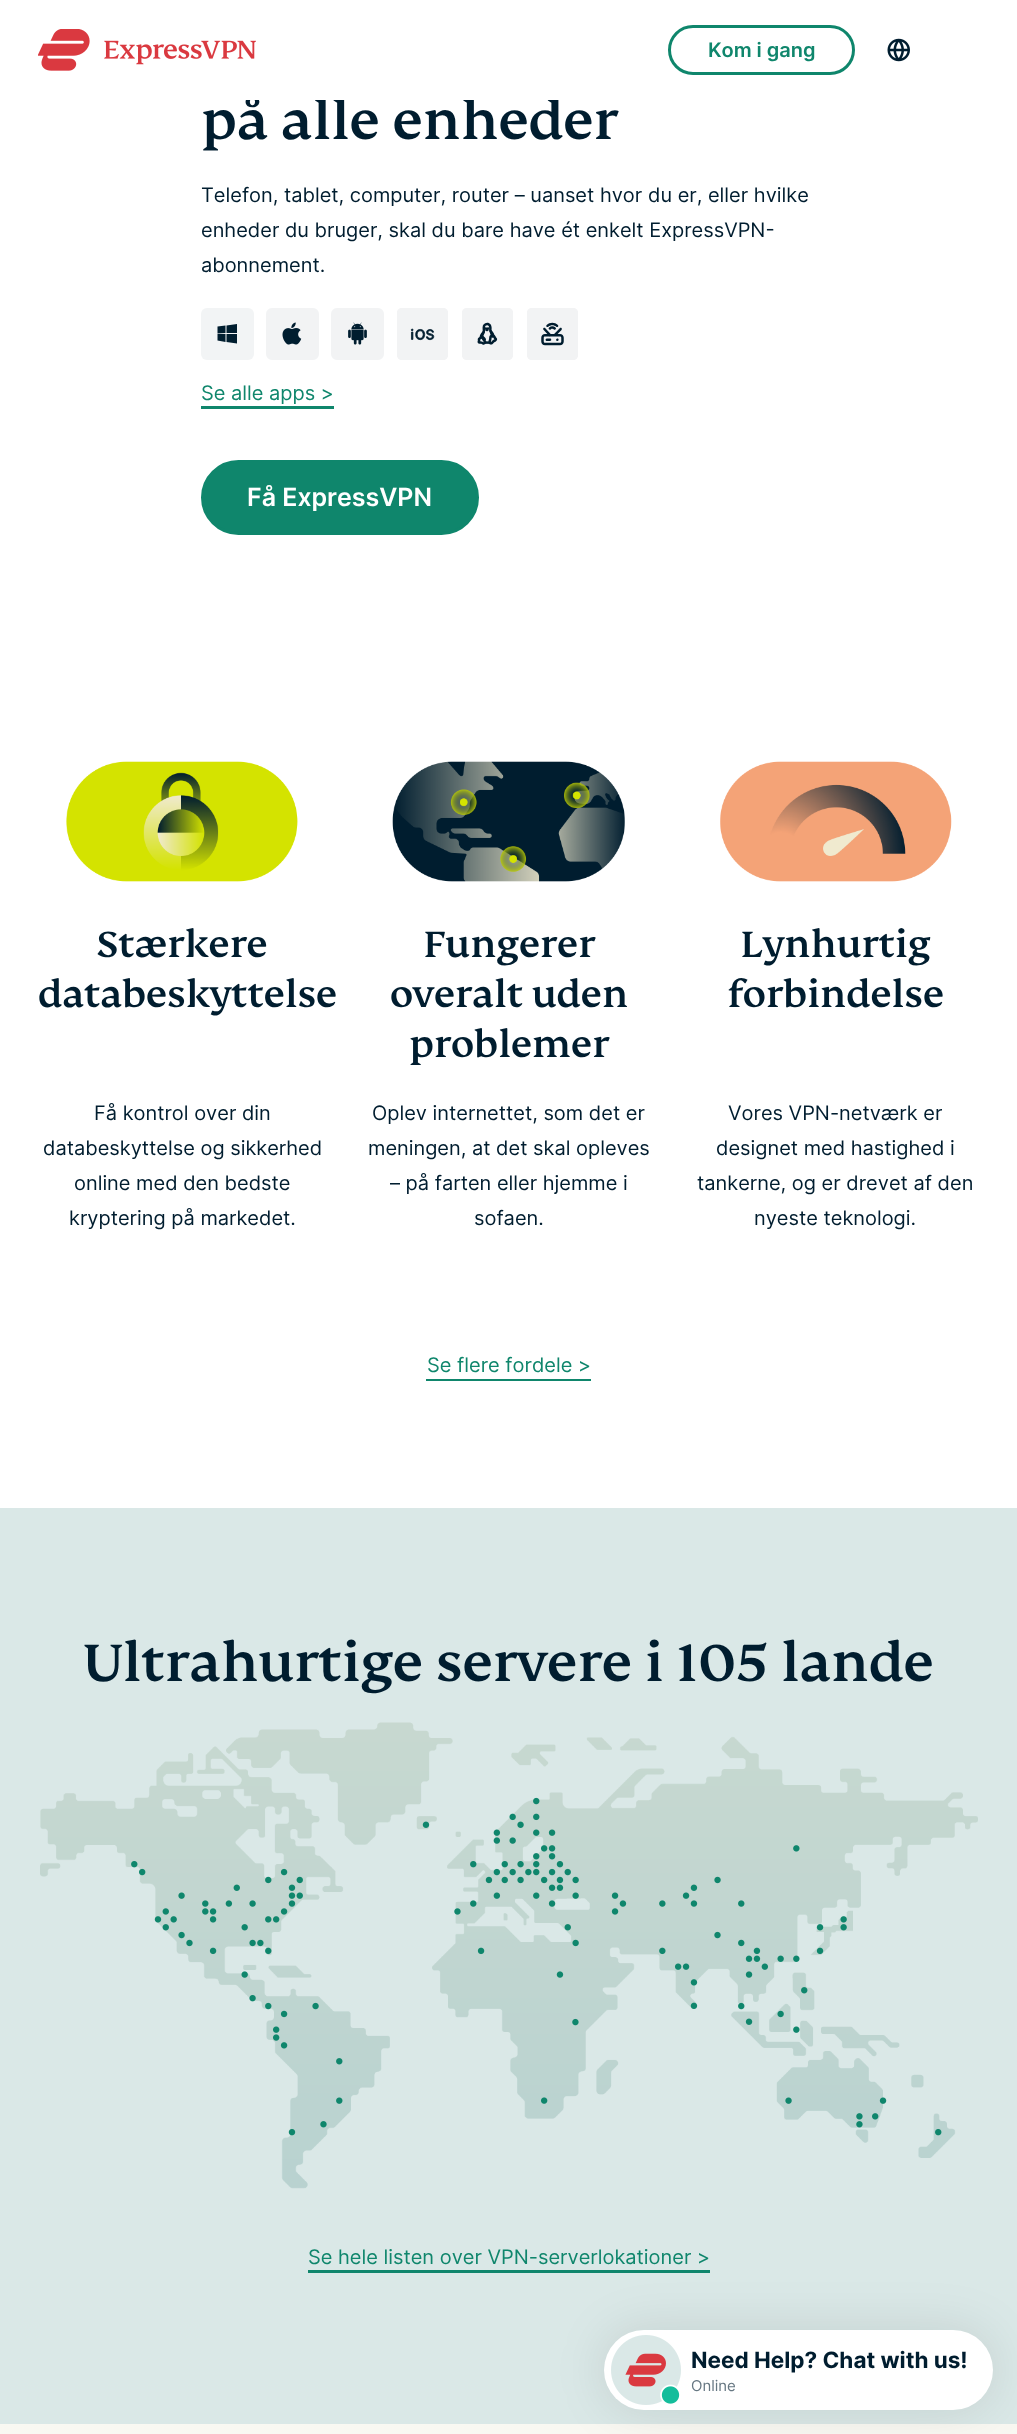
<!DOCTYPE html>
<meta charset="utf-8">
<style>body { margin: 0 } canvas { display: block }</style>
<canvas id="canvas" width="1017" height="2434"></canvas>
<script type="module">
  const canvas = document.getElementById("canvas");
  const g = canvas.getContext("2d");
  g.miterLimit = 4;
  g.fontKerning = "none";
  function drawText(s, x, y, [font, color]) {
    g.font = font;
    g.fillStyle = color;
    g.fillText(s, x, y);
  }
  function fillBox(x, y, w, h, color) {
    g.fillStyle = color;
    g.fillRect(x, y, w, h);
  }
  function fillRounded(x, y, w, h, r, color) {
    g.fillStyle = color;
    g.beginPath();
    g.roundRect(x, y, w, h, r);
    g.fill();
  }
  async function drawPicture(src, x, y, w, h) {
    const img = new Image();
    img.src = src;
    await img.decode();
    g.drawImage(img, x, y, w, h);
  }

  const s1 = ["500 57.5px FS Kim", "#001D2F"];
  const s2 = ["600 20px Inter", "#0F866C"];
  const s3 = ["20px Inter", "#001D2F"];
  const s4 = ["20px Inter", "#0F866C"];
  const s5 = ["600 25px Inter", "#FFFFFF"];
  const s6 = ["500 40px FS Kim", "#001D2F"];
  const s7 = ["bold 22.5px Inter", "#001D2F"];
  const s8 = ["15px Inter", "#667782"];

  fillBox(0, 0, 1017, 2434, "#FFFFFF");
  drawText("på alle enheder", 201, 139, s1);
  fillBox(245, 96, 314, 4, "#FFFFFF");
  await drawPicture("pic1.png", 38, 29, 218, 42);
  g.beginPath();
  g.roundRect(669.5, 26.5, 184, 47, 23.5);
  g.strokeStyle = "#0F866C";
  g.lineWidth = 3;
  g.stroke();
  drawText("Kom i gang", 708, 57, s2);
  await drawPicture("pic2.png", 887, 38, 23, 24);
  drawText("Telefon, tablet, computer, router – uanset hvor", 201, 202, s3);
  drawText("du er, eller hvilke", 648, 202, s3);
  drawText("enheder du bruger, skal du bare have ét enkelt ExpressVPN-", 201, 237, s3);
  drawText("abonnement.", 201, 272, s3);
  fillRounded(201, 308, 53, 52, 6, "#F2F4F5");
  g.fillStyle = "#001D2F";
  g.beginPath();
  g.moveTo(225.5, 325.5);
  g.lineTo(225.5, 333);
  g.lineTo(217.5, 333.5);
  g.lineTo(217.5, 326.5);
  g.closePath();
  g.moveTo(225.5, 334);
  g.lineTo(225.5, 342);
  g.lineTo(217.5, 340.5);
  g.lineTo(217.5, 334);
  g.closePath();
  g.moveTo(237, 324);
  g.lineTo(237, 333);
  g.lineTo(226.5, 333);
  g.lineTo(226.5, 325.5);
  g.closePath();
  g.moveTo(237, 334);
  g.lineTo(237, 343.5);
  g.lineTo(226.5, 342);
  g.lineTo(226.5, 334);
  g.closePath();
  g.fill("evenodd");
  await drawPicture("pic3.png", 266, 308, 53, 52);
  await drawPicture("pic4.png", 331, 308, 53, 52);
  await drawPicture("pic5.png", 397, 308, 51, 52);
  await drawPicture("pic6.png", 462, 308, 51, 52);
  await drawPicture("pic7.png", 527, 308, 51, 52);
  drawText("Se alle apps >", 201, 400, s4);
  fillBox(201, 406, 133, 3, "#0F866C");
  g.beginPath();
  g.roundRect(202.5, 461.5, 275, 72, 36);
  g.fill();
  g.stroke();
  drawText("Få ExpressVPN", 247, 506, s5);
  await drawPicture("pic8.png", 66, 761, 232, 121);
  await drawPicture("pic9.png", 392, 761, 233, 121);
  await drawPicture("pic10.png", 720, 761, 232, 121);
  drawText("Stærkere", 96, 957, s6);
  drawText("databeskyttelse", 38, 1007, s6);
  drawText("Fungerer", 423, 957, s6);
  drawText("overalt uden", 390, 1007, s6);
  drawText("problemer", 409, 1057, s6);
  drawText("Lynhurtig", 740, 957, s6);
  drawText("forbindelse", 727, 1007, s6);
  drawText("Få kontrol over din", 94, 1120, s3);
  drawText("databeskyttelse og sikkerhed", 43, 1155, s3);
  drawText("online med den bedste", 74, 1190, s3);
  drawText("kryptering på markedet.", 69, 1225, s3);
  drawText("Oplev internettet, som det er", 372, 1120, s3);
  drawText("meningen, at det skal opleves", 368, 1155, s3);
  drawText("– på farten eller hjemme i", 390, 1190, s3);
  drawText("sofaen.", 474, 1225, s3);
  drawText("Vores VPN-netværk er", 728, 1120, s3);
  drawText("designet med hastighed i", 716, 1155, s3);
  drawText("tankerne, og er drevet af den", 697, 1190, s3);
  drawText("nyeste teknologi.", 754, 1225, s3);
  drawText("Se flere fordele >", 427, 1372, s4);
  fillBox(426, 1379, 165, 2, "#0F866C");
  fillBox(0, 1508, 1017, 916, "#DAE8E7");
  drawText("Ultrahurtige servere i 105 lande", 83, 1681, s1);
  await drawPicture("pic11.png", 40, 1722, 938, 467);
  await drawPicture("pic12.png", 131, 1797, 811, 339);
  drawText("Se hele listen over VPN-serverlokationer >", 308, 2264, s4);
  fillBox(308, 2270, 402, 3, "#0F866C");
  fillBox(0, 2424, 1017, 10, "#F9F8F2");
  g.fillStyle = "rgba(0, 0, 0, 0.1)";
  g.filter = "blur(25px)";
  g.beginPath();
  g.roundRect(604, 2330, 389, 80, 40);
  g.fill();
  g.filter = "none";
  fillRounded(604, 2330, 389, 80, 40, "#FFFFFF");
  await drawPicture("pic13.png", 611, 2335, 70, 70);
  drawText("Need Help? Chat with us!", 691, 2368, s7);
  drawText("Online", 691, 2391, s8);
</script>
